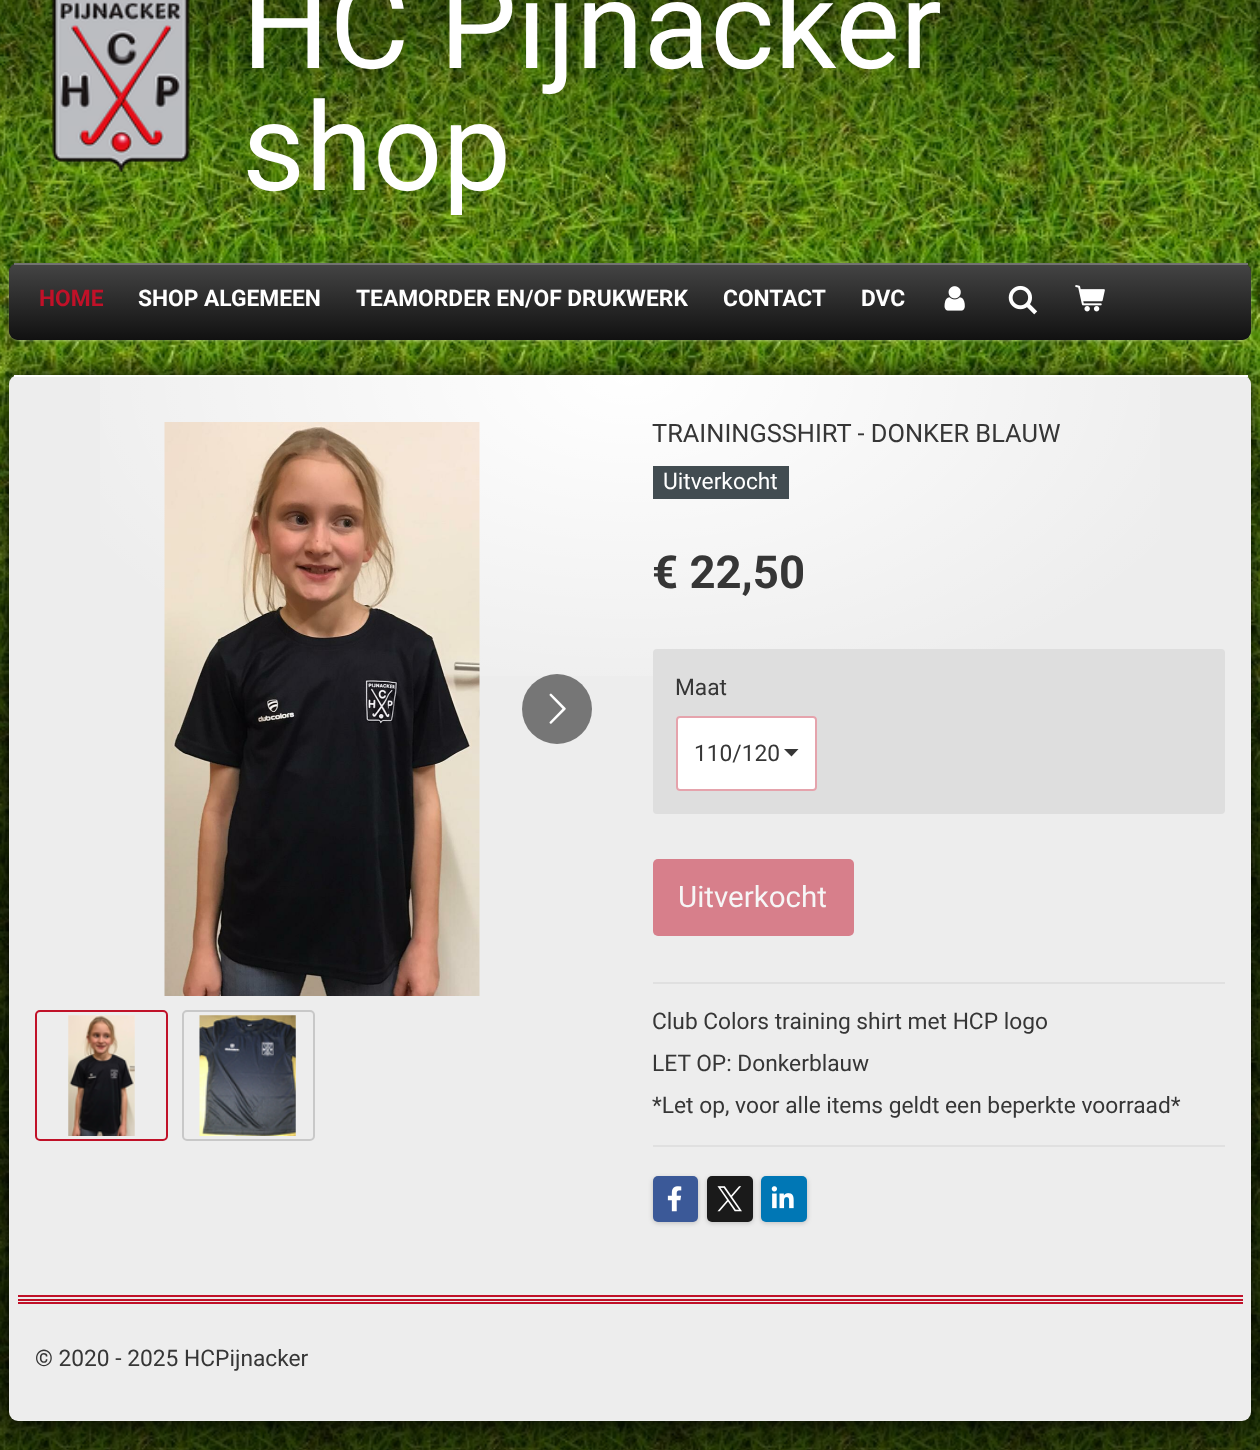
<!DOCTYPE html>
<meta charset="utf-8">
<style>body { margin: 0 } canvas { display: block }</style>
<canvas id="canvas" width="1260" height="1450"></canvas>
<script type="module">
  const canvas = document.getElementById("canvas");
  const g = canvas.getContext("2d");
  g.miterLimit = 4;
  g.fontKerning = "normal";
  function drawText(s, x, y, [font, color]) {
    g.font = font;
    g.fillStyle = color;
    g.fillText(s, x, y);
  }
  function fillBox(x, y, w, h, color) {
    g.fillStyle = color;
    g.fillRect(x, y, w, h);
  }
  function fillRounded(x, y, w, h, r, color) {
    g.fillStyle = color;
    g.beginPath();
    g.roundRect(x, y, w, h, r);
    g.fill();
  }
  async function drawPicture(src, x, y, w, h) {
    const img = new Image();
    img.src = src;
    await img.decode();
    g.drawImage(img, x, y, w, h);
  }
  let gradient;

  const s1 = ["122.5px Roboto", "#FFFFFF"];
  const s2 = ["bold 22.75px Roboto", "#C01128"];
  const s3 = ["bold 22.75px Roboto", "#FFFFFF"];
  const s4 = ["25.4px Roboto", "#363636"];
  const s5 = ["22.75px Roboto", "#FFFFFF"];
  const s6 = ["bold 45.5px Roboto", "#363636"];
  const s7 = ["22.75px Roboto", "#363636"];
  const s8 = ["29.5px Roboto", "#F6F6F6"];

  fillBox(0, 0, 1260, 1450, "#FFFFFF");
  await drawPicture("pic1.png", 0, 0, 1260, 1450);
  await drawPicture("pic2.png", 51, 0, 139, 173);
  drawText("HC Pijnacker", 242, 68, s1);
  drawText("shop", 242, 190, s1);
  g.fillStyle = "rgba(255, 255, 255, 0.3)";
  g.filter = "blur(1px)";
  g.beginPath();
  g.roundRect(9, 264, 1242, 77, 9);
  g.fill();
  g.filter = "none";
  fillRounded(9, 263, 1242, 77, 9, "#111111");
  g.save();
  g.beginPath();
  g.roundRect(9, 263, 1242, 77, 9);
  g.clip();
  gradient = g.createLinearGradient(630, 340, 630, 264);
  gradient.addColorStop(0, "#111111");
  gradient.addColorStop(1, "#444444");
  g.fillStyle = gradient;
  g.beginPath();
  g.roundRect(9, 264, 1242, 76, [0, 0, 9, 9]);
  g.fill();
  g.restore();
  fillBox(14, 263, 1234, 2, "#727272");
  drawText("HOME", 39, 306, s2);
  drawText("SHOP ALGEMEEN", 138, 306, s3);
  drawText("TEAMORDER EN/OF DRUKWERK", 356, 306, s3);
  drawText("CONTACT", 723, 306, s3);
  drawText("DVC", 861, 306, s3);
  await drawPicture("pic3.png", 944, 286, 21, 25);
  await drawPicture("pic4.png", 1008, 285, 30, 30);
  await drawPicture("pic5.png", 1075, 285, 30, 27);
  fillBox(0, 828, 1260, 622, "rgba(0, 0, 0, 0.6)");
  g.fillStyle = "#000000";
  g.filter = "blur(13px)";
  g.beginPath();
  g.roundRect(9, 375, 1242, 1046, 9);
  g.fill();
  g.filter = "none";
  fillRounded(9, 375, 1242, 1046, 9, "#EDEDED");
  fillBox(14, 375, 1234, 2, "#FFFFFF");
  gradient = g.createRadialGradient(630, 667.13, 0, 630, 667.13, 621);
  gradient.addColorStop(0, "#FFFFFF");
  gradient.addColorStop(1, "rgba(255, 255, 255, 0)");
  g.fillStyle = gradient;
  g.beginPath();
  g.rect(100, 377, 1060, 299);
  g.save();
  g.clip();
  g.scale(1, 350 / 621);
  g.fillRect(0, 0, 1260, 2573);
  g.restore();
  await drawPicture("pic6.png", 164, 422, 316, 574);
  g.fillStyle = "rgba(0, 0, 0, 0.5)";
  g.beginPath();
  g.arc(557, 709, 35, 0, Math.PI * 2);
  g.fill();
  await drawPicture("pic7.png", 549, 693, 17, 31);
  g.beginPath();
  g.roundRect(36, 1011, 131, 129, 4);
  g.strokeStyle = "#C01128";
  g.lineWidth = 2;
  g.stroke();
  await drawPicture("pic8.png", 68, 1015, 67, 121);
  g.beginPath();
  g.roundRect(183, 1011, 131, 129, 4);
  g.strokeStyle = "#C8C8C8";
  g.stroke();
  await drawPicture("pic9.png", 199, 1015, 97, 121);
  drawText("TRAININGSSHIRT - DONKER BLAUW", 652, 442, s4);
  fillBox(653, 466, 136, 33, "#424C51");
  drawText("Uitverkocht", 663, 489, s5);
  drawText("€ 22,50", 652, 588, s6);
  fillRounded(653, 649, 572, 165, 4, "#DEDEDE");
  drawText("Maat", 675, 695, s7);
  fillRounded(676, 716, 141, 75, 4, "#FFFFFF");
  g.fillStyle = "#363636";
  g.beginPath();
  g.moveTo(791.5, 756.5);
  g.lineTo(784, 749);
  g.lineTo(798.5, 749);
  g.closePath();
  g.fill();
  g.beginPath();
  g.roundRect(677, 717, 139, 73, 3);
  g.strokeStyle = "rgba(203, 72, 89, 0.5)";
  g.stroke();
  drawText("110/120", 694, 761, s7);
  fillRounded(653, 859, 201, 77, 5, "#D77F8B");
  drawText("Uitverkocht", 678, 907, s8);
  fillBox(653, 982, 572, 2, "#E0E0E0");
  drawText("Club Colors training shirt met HCP logo", 652, 1029, s7);
  drawText("LET OP: Donkerblauw", 652, 1071, s7);
  drawText("*Let op, voor alle items geldt een beperkte voorraad*", 652, 1113, s7);
  fillBox(653, 1145, 572, 2, "#E0E0E0");
  g.fillStyle = "rgba(0, 0, 0, 0.2)";
  g.filter = "blur(2.5px)";
  g.beginPath();
  g.roundRect(653, 1178, 45, 45, 5);
  g.fill();
  g.filter = "none";
  fillRounded(653, 1176, 45, 46, 5, "#3B5998");
  await drawPicture("pic10.png", 667, 1186, 15, 26);
  g.fillStyle = "rgba(0, 0, 0, 0.2)";
  g.filter = "blur(2.5px)";
  g.beginPath();
  g.roundRect(707, 1178, 46, 45, 5);
  g.fill();
  g.filter = "none";
  fillRounded(707, 1176, 46, 46, 5, "#1A1A1A");
  await drawPicture("pic11.png", 717, 1186, 25, 26);
  g.fillStyle = "rgba(0, 0, 0, 0.2)";
  g.filter = "blur(2.5px)";
  g.beginPath();
  g.roundRect(761, 1178, 46, 45, 5);
  g.fill();
  g.filter = "none";
  fillRounded(761, 1176, 46, 46, 5, "#0077B5");
  await drawPicture("pic12.png", 771, 1186, 23, 23);
  fillBox(18, 1295, 1225, 2, "#C01128");
  fillBox(18, 1299, 1225, 2, "#C01128");
  fillBox(18, 1302, 1225, 2, "#C01128");
  drawText("© 2020 - 2025 HCPijnacker", 35, 1366, s7);
</script>
